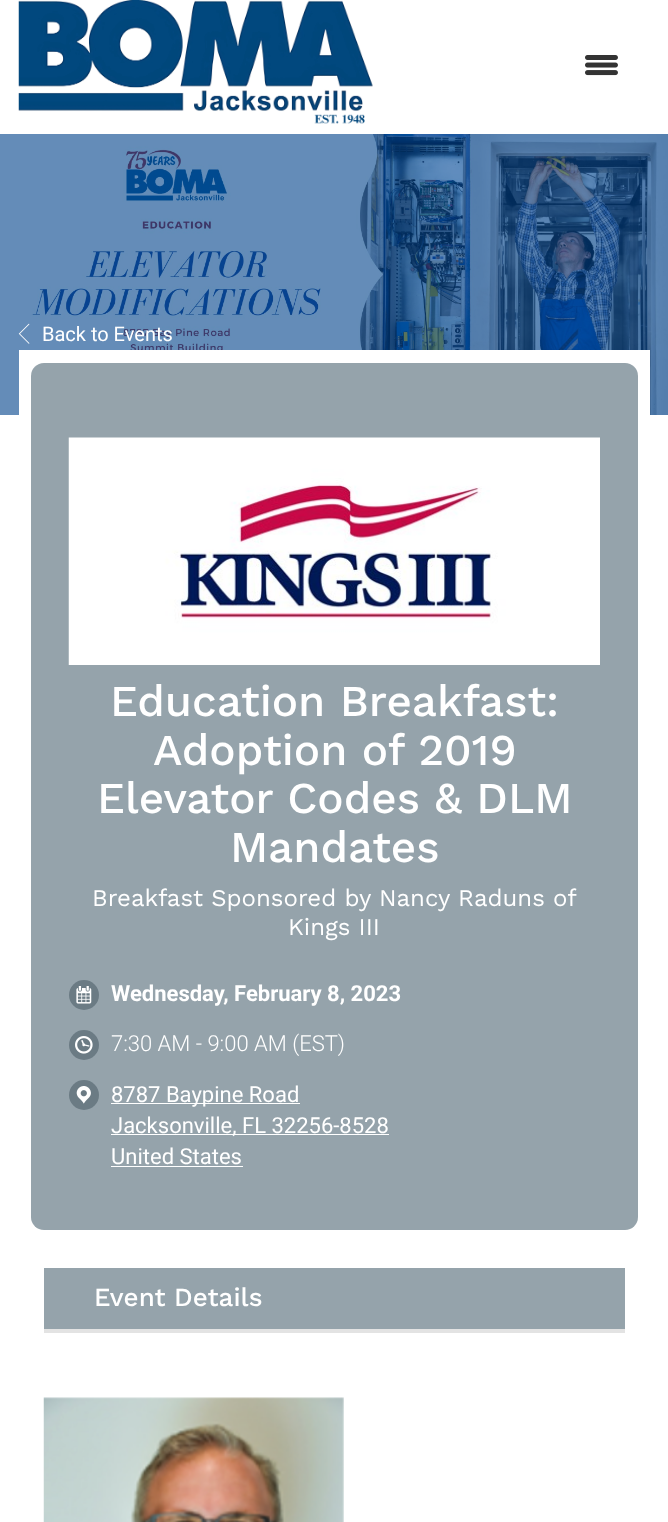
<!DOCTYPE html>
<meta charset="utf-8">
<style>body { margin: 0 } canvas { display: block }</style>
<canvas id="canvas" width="668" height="1522"></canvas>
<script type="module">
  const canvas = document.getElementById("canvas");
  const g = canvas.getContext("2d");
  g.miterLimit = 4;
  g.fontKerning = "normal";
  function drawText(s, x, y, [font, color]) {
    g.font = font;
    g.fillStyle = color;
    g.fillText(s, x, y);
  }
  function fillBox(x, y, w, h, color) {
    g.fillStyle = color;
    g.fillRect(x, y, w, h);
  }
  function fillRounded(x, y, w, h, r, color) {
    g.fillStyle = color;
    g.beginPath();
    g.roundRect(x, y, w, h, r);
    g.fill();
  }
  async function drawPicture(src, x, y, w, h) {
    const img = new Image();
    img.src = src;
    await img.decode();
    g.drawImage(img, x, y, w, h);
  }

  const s1 = ["20px Roboto", "#FFFFFF"];
  const s2 = ["500 44px Work Sans", "#FFFFFF"];
  const s3 = ["24px Work Sans", "#FFFFFF"];
  const s4 = ["bold 22px Roboto", "#FFFFFF"];
  const s5 = ["300 22px Roboto", "#FFFFFF"];
  const s6 = ["22px Roboto", "#FFFFFF"];
  const s7 = ["500 26px Work Sans", "#FFFFFF"];

  fillBox(0, 0, 668, 1522, "#FFFFFF");
  await drawPicture("pic1.png", 18, 0, 355, 124);
  await drawPicture("pic2.png", 585, 55, 33, 21);
  await drawPicture("pic3.png", 0, 134, 668, 281);
  await drawPicture("pic4.png", 18, 323, 12, 21);
  drawText("Back to Events", 42, 341, s1);
  fillBox(19, 350, 631, 65, "#FFFFFF");
  fillRounded(31, 363, 607, 867, 13, "#95A3AB");
  await drawPicture("pic5.png", 68, 437, 532, 228);
  drawText("Education Breakfast:", 110, 716, s2);
  drawText("Adoption of 2019", 153, 765, s2);
  drawText("Elevator Codes & DLM", 97, 813, s2);
  drawText("Mandates", 230, 862, s2);
  drawText("Breakfast Sponsored by Nancy Raduns of", 92, 906, s3);
  drawText("Kings III", 288, 935, s3);
  g.fillStyle = "#6B7B84";
  g.beginPath();
  g.arc(84, 995, 15, 0, Math.PI * 2);
  g.fill();
  await drawPicture("pic6.png", 76, 986, 16, 18);
  drawText("Wednesday, February 8, 2023", 111, 1001, s4);
  g.fillStyle = "#6B7B84";
  g.beginPath();
  g.arc(84, 1045, 15, 0, Math.PI * 2);
  g.fill();
  await drawPicture("pic7.png", 75, 1036, 18, 18);
  drawText("7:30 AM - 9:00 AM (EST)", 111, 1051, s5);
  g.fillStyle = "#6B7B84";
  g.beginPath();
  g.arc(84, 1095, 15, 0, Math.PI * 2);
  g.fill();
  await drawPicture("pic8.png", 76, 1086, 15, 18);
  fillBox(111, 1103, 189, 1, "#FFFFFF");
  drawText("8787 Baypine Road", 111, 1102, s6);
  fillBox(111, 1134, 278, 1, "#FFFFFF");
  drawText("Jacksonville, FL 32256-8528", 111, 1133, s6);
  drawText("United States", 111, 1164, s6);
  fillBox(111, 1166, 132, 1, "#FFFFFF");
  fillBox(44, 1329, 581, 4, "#E3E3E3");
  fillBox(44, 1268, 581, 61, "#95A3AB");
  drawText("Event Details", 94, 1306, s7);
  await drawPicture("pic9.png", 43, 1397, 301, 125);
</script>
